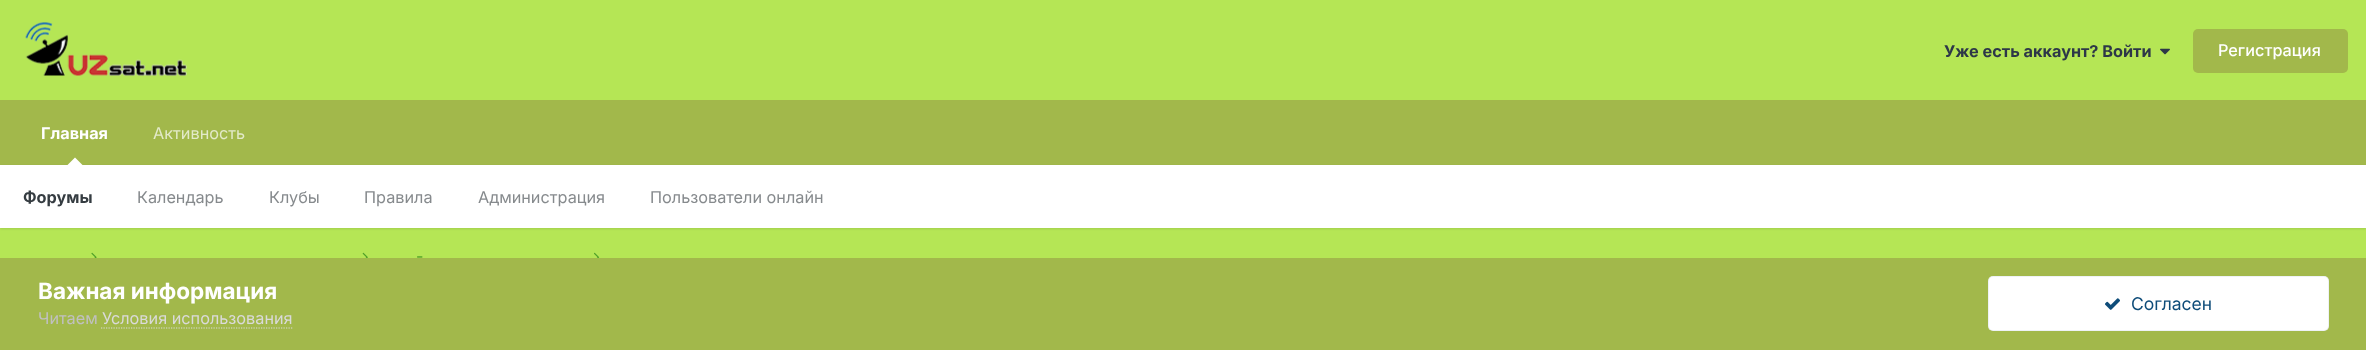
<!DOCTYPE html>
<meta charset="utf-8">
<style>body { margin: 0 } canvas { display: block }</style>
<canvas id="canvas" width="2366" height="350"></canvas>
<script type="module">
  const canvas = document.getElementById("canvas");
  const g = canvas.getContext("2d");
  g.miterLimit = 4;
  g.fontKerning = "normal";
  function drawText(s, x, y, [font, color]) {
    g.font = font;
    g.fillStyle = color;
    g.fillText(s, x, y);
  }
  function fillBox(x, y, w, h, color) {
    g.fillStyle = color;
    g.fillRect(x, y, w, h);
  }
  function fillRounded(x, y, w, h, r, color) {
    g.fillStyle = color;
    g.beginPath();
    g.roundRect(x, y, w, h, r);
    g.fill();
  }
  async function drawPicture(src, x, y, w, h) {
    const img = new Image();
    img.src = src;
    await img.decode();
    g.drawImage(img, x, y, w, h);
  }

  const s1 = ["bold 16.25px Inter", "#2D3748"];
  const s2 = ["500 16.25px Inter", "#FFFFFF"];
  const s3 = ["bold 16.25px Inter", "#FFFFFF"];
  const s4 = ["bold 16.25px Inter", "#353C41"];
  const s5 = ["16.25px Inter", "#868A8D"];
  const s6 = ["16.25px Inter", "#E3EAC9"];
  const s7 = ["16.25px Inter", "#50A029"];
  const s8 = ["bold 22.5px Inter", "#FFFFFF"];
  const s9 = ["16.25px Inter", "#C0C0C0"];
  const s10 = ["16.25px Inter", "#DADADA"];
  const s11 = ["17.5px Inter", "#0E4C79"];

  fillBox(0, 0, 2366, 350, "#B5E655");
  await drawPicture("pic1.png", 25, 22, 162, 54);
  drawText("Уже есть аккаунт? Войти", 1944, 57, s1);
  await drawPicture("pic2.png", 2160, 48, 10, 7);
  fillRounded(2193, 29, 155, 44, 5, "#A2B84B");
  drawText("Регистрация", 2218, 56, s2);
  fillBox(0, 100, 2366, 65, "#A2B84B");
  drawText("Главная", 41, 139, s3);
  g.fillStyle = "rgba(0, 0, 0, 0.1)";
  g.filter = "blur(1px)";
  g.beginPath();
  g.rect(0, 166, 2366, 63);
  g.fill();
  g.filter = "none";
  g.fillStyle = "#FFFFFF";
  g.beginPath();
  g.moveTo(82.5, 165);
  g.lineTo(67.5, 165);
  g.lineTo(75, 157.5);
  g.closePath();
  g.fill();
  fillBox(0, 165, 2366, 63, "#FFFFFF");
  drawText("Форумы", 23, 203, s4);
  drawText("Календарь", 137, 203, s5);
  drawText("Клубы", 269, 203, s5);
  drawText("Правила", 364, 203, s5);
  drawText("Администрация", 478, 203, s5);
  drawText("Пользователи онлайн", 650, 203, s5);
  drawText("Активность", 153, 139, s6);
  await drawPicture("pic3.png", 91, 252, 6, 6);
  await drawPicture("pic4.png", 362, 252, 6, 6);
  drawText("-", 416, 262, s7);
  await drawPicture("pic5.png", 594, 252, 6, 6);
  fillBox(0, 258, 2366, 92, "#A2B84B");
  drawText("Важная информация", 38, 299, s8);
  drawText("Читаем", 38, 324, s9);
  drawText("Условия использования", 102, 324, s10);
  g.beginPath();
  g.moveTo(101, 328);
  g.lineTo(292.5, 328);
  g.strokeStyle = "#DADADA";
  g.lineWidth = 1.2;
  g.setLineDash([1.25, 1.25]);
  g.stroke();
  fillRounded(1988, 276, 341, 55, 5, "#FFFFFF");
  g.beginPath();
  g.roundRect(1988.5, 276.5, 340, 54, 4.5);
  g.strokeStyle = "rgba(14, 76, 121, 0.07)";
  g.lineWidth = 1;
  g.setLineDash([]);
  g.stroke();
  await drawPicture("pic6.png", 2105, 298, 15, 12);
  drawText("Согласен", 2131, 310, s11);
</script>
